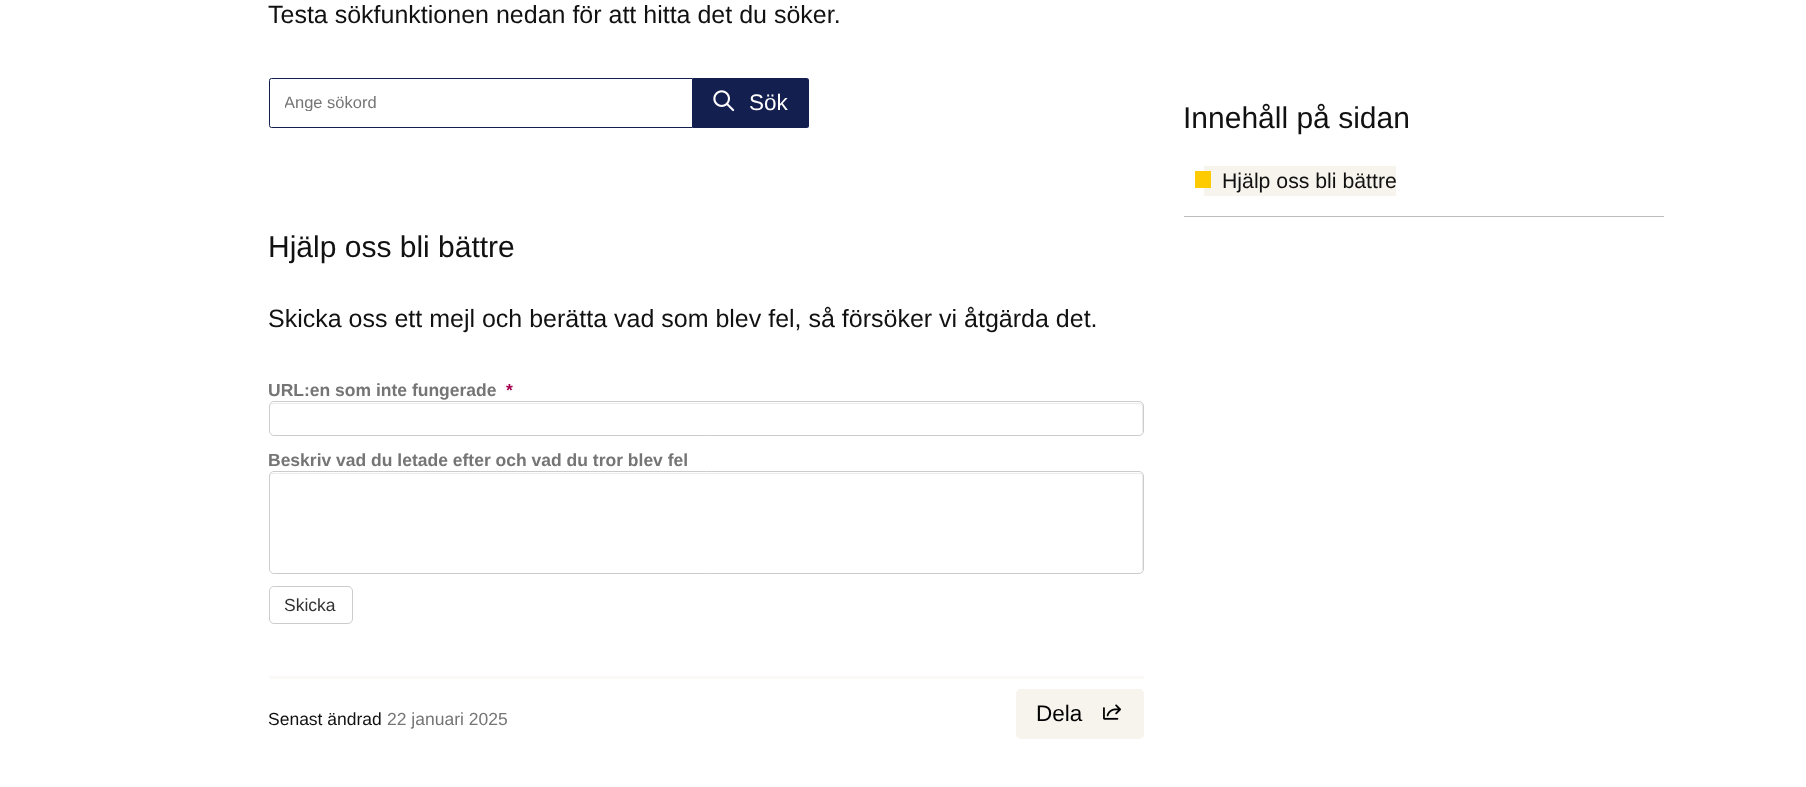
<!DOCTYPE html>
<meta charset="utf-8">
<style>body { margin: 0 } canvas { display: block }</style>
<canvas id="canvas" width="1806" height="787"></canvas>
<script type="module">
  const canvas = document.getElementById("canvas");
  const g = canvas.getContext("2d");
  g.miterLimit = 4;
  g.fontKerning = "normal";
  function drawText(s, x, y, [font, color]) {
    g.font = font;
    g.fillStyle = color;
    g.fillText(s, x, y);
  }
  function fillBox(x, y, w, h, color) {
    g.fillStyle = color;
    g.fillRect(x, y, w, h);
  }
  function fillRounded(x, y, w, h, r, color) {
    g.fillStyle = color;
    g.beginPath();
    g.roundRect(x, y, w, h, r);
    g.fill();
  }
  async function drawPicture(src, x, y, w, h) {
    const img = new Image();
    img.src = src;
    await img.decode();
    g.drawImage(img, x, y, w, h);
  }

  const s1 = ["25px Liberation Sans", "#111111"];
  const s2 = ["16.5px Liberation Sans", "#757575"];
  const s3 = ["22.5px Liberation Sans", "#FFFFFF"];
  const s4 = ["30px Liberation Sans", "#111111"];
  const s5 = ["bold 17.5px Liberation Sans", "#757575"];
  const s6 = ["bold 17.5px Liberation Sans", "#A80050"];
  const s7 = ["17.5px Liberation Sans", "#333333"];
  const s8 = ["17.5px Liberation Sans", "#111111"];
  const s9 = ["17.5px Liberation Sans", "#757575"];
  const s10 = ["22.5px Liberation Sans", "#000000"];
  const s11 = ["21.25px Liberation Sans", "#111111"];

  fillBox(0, 0, 1806, 787, "#FFFFFF");
  drawText("Testa sökfunktionen nedan för att hitta det du söker.", 268, 23, s1);
  g.beginPath();
  g.roundRect(269.5, 78.5, 423, 49, [2, 0, 0, 2]);
  g.strokeStyle = "#131F4F";
  g.stroke();
  g.save();
  g.beginPath();
  g.rect(285, 93, 391, 18);
  g.clip();
  drawText("Ange sökord", 284, 108, s2);
  g.restore();
  g.fillStyle = "#131F4F";
  g.beginPath();
  g.roundRect(693, 78, 116, 50, [0, 2.5, 2.5, 0]);
  g.fill();
  await drawPicture("pic1.png", 713, 90, 22, 22);
  drawText("Sök", 749, 110, s3);
  drawText("Hjälp oss bli bättre", 268, 257, s4);
  drawText("Skicka oss ett mejl och berätta vad som blev fel, så försöker vi åtgärda det.", 268, 327, s1);
  drawText("URL:en som inte fungerade", 268, 396, s5);
  drawText("*", 506, 396, s6);
  g.fillStyle = "#ECECEC";
  g.beginPath();
  g.moveTo(274, 404);
  g.lineTo(1139, 404);
  g.bezierCurveTo(1141, 404, 1142, 405, 1142, 408);
  g.lineTo(1142, 434);
  g.bezierCurveTo(1144, 431, 1143, 422, 1143, 419);
  g.lineTo(1143, 406);
  g.bezierCurveTo(1143, 404, 1141, 403, 1139, 403);
  g.lineTo(272, 403);
  g.lineTo(271, 405);
  g.lineTo(270, 408);
  g.bezierCurveTo(270, 405, 272, 404, 274, 404);
  g.closePath();
  g.fill();
  g.beginPath();
  g.roundRect(269.5, 401.5, 874, 34, 4.5);
  g.strokeStyle = "#CCCCCC";
  g.stroke();
  drawText("Beskriv vad du letade efter och vad du tror blev fel", 268, 466, s5);
  g.fillStyle = "#ECECEC";
  g.beginPath();
  g.moveTo(274, 474);
  g.lineTo(1139, 474);
  g.bezierCurveTo(1141, 474, 1142, 475, 1142, 478);
  g.lineTo(1142, 570);
  g.lineTo(1142, 572);
  g.bezierCurveTo(1142, 571, 1143, 570, 1143, 569);
  g.lineTo(1143, 477);
  g.bezierCurveTo(1143, 475, 1141, 473, 1139, 473);
  g.lineTo(274, 473);
  g.bezierCurveTo(272, 473, 270, 475, 270, 477);
  g.lineTo(270, 478);
  g.bezierCurveTo(270, 475, 272, 474, 274, 474);
  g.closePath();
  g.fill();
  g.beginPath();
  g.roundRect(269.5, 471.5, 874, 102, 4.5);
  g.stroke();
  g.beginPath();
  g.roundRect(269.5, 586.5, 83, 37, 4.5);
  g.stroke();
  drawText("Skicka", 284, 611, s7);
  fillBox(269, 676, 875, 3, "#FBF9F6");
  drawText("Senast ändrad", 268, 725, s8);
  drawText("22 januari 2025", 387, 725, s9);
  fillRounded(1016, 689, 128, 50, 5, "#F7F3ED");
  drawText("Dela", 1036, 721, s10);
  await drawPicture("pic2.png", 1103, 704, 18, 16);
  drawText("Innehåll på sidan", 1183, 128, s4);
  fillBox(1184, 216, 480, 1, "#BDBDBD");
  fillBox(1204, 166, 192, 30, "#F7F3ED");
  fillBox(1195, 171, 16, 17, "#FECB00");
  drawText("Hjälp oss bli bättre", 1222, 188, s11);
</script>
